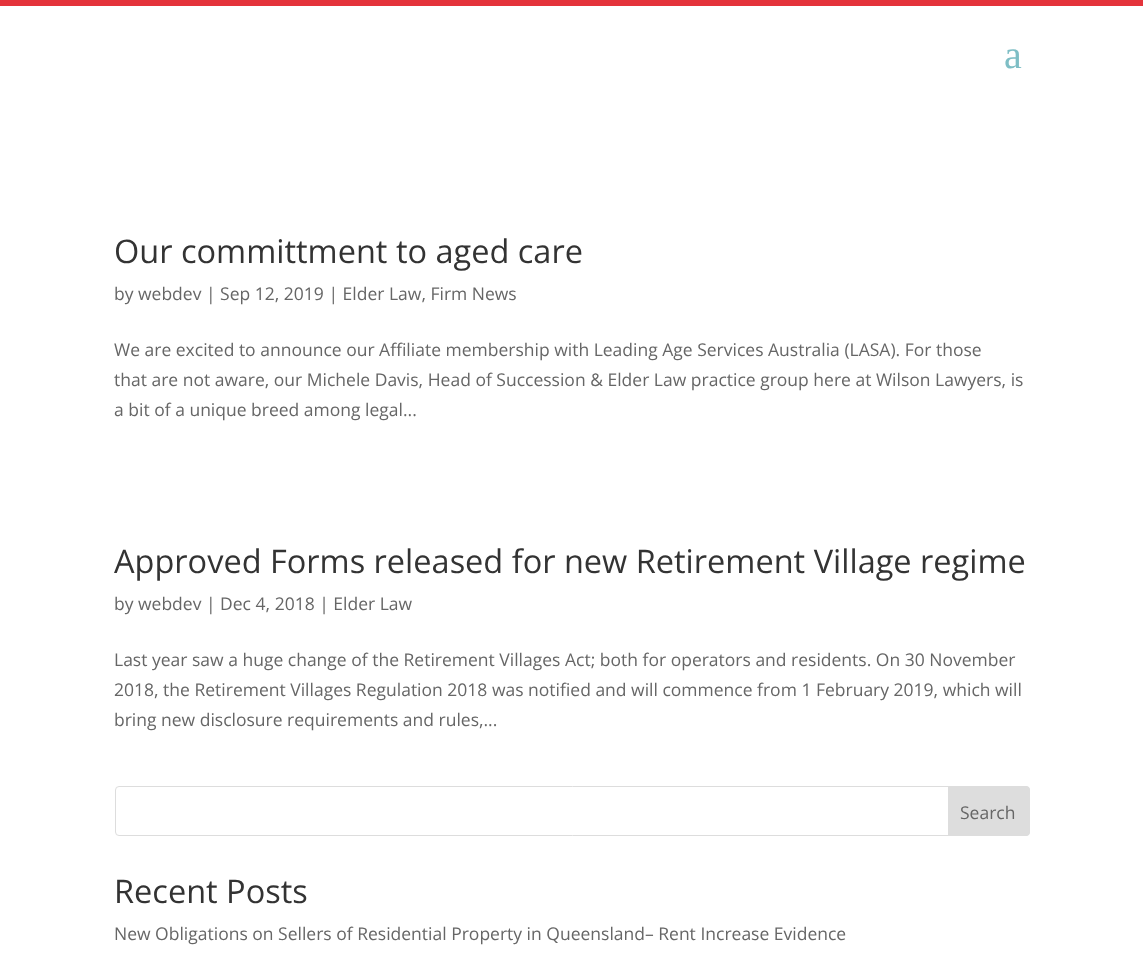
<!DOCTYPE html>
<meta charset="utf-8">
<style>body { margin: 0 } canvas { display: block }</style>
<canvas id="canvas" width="1143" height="968"></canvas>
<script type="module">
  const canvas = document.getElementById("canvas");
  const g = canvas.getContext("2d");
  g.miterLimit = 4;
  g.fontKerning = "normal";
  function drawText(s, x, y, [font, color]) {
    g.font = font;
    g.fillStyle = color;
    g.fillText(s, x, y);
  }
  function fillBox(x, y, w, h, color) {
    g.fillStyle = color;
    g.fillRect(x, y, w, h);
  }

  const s1 = ["40px Liberation Serif", "#7EBEC5"];
  const s2 = ["32.5px Open Sans", "#333333"];
  const s3 = ["17.5px Open Sans", "#666666"];

  fillBox(0, 0, 1143, 968, "#FFFFFF");
  fillBox(0, 0, 1143, 6, "#E4333B");
  drawText("a", 1004, 68, s1);
  drawText("Our committment to aged care", 114, 263, s2);
  drawText("by webdev | Sep 12, 2019 | Elder Law, Firm News", 114, 300, s3);
  drawText("We are excited to announce our Affiliate membership with Leading Age Services Australia (LASA). For those", 114, 356, s3);
  drawText("that are not aware, our Michele Davis, Head of Succession & Elder Law practice group here at Wilson Lawyers, is", 114, 386, s3);
  drawText("a bit of a unique breed among legal...", 114, 416, s3);
  drawText("Approved Forms released for new Retirement Village regime", 114, 573, s2);
  drawText("by webdev | Dec 4, 2018 | Elder Law", 114, 610, s3);
  drawText("Last year saw a huge change of the Retirement Villages Act; both for operators and residents. On 30 November", 114, 666, s3);
  drawText("2018, the Retirement Villages Regulation 2018 was notified and will commence from 1 February 2019, which will", 114, 696, s3);
  drawText("bring new disclosure requirements and rules,...", 114, 726, s3);
  g.beginPath();
  g.roundRect(115.5, 786.5, 914, 49, 3.5);
  g.strokeStyle = "#DDDDDD";
  g.stroke();
  g.fillStyle = "#DDDDDD";
  g.beginPath();
  g.roundRect(948.5, 786.5, 81, 49, [0, 3.5, 3.5, 0]);
  g.fill();
  g.stroke();
  drawText("Search", 960, 819, s3);
  drawText("Recent Posts", 114, 903, s2);
  drawText("New Obligations on Sellers of Residential Property in Queensland– Rent Increase Evidence", 114, 940, s3);
</script>
